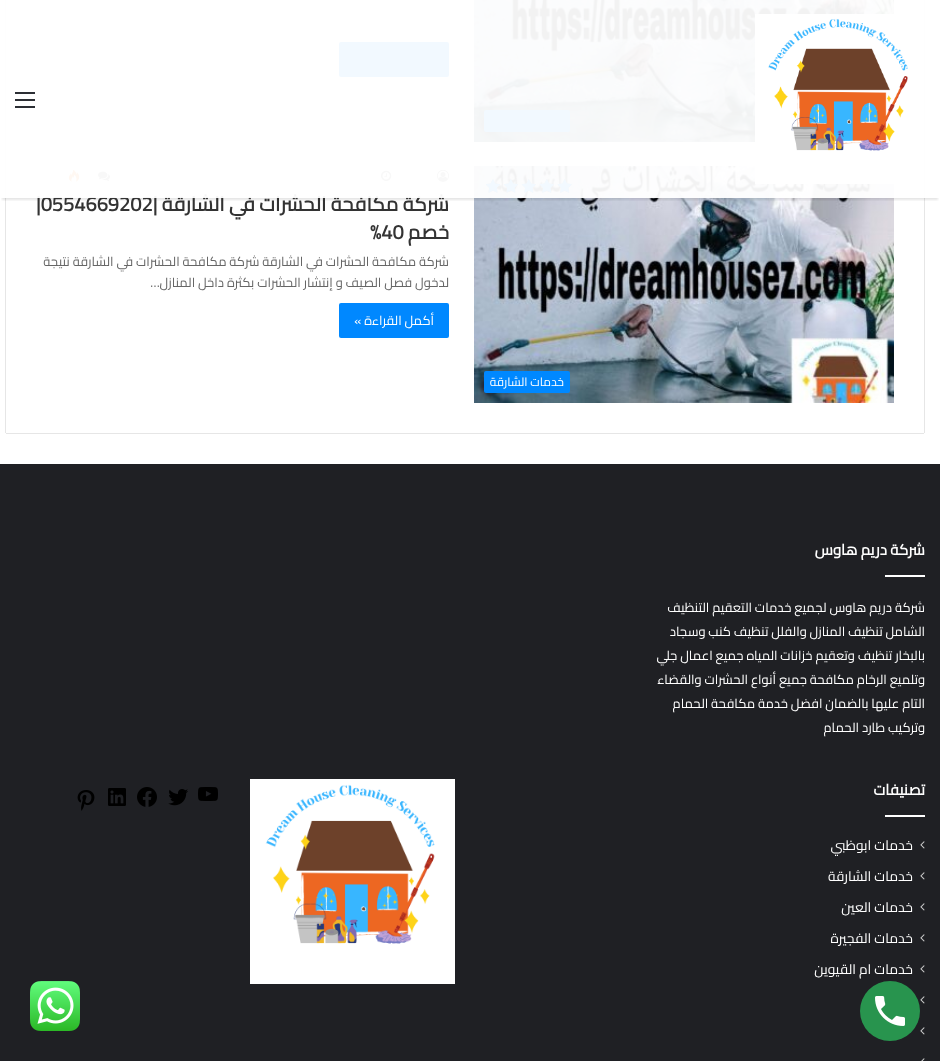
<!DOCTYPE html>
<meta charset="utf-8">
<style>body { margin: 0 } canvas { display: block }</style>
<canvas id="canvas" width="940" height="1061"></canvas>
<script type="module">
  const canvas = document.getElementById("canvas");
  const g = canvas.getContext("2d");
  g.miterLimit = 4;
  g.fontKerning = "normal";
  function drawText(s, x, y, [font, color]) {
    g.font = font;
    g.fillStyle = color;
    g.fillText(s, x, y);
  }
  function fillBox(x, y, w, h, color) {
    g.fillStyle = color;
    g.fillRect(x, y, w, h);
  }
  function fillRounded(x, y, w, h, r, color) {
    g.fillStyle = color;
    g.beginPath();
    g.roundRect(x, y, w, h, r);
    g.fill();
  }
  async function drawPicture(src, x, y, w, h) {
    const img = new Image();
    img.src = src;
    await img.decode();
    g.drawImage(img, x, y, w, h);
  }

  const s1 = ["bold 20px Cairo", "#333333"];
  const s2 = ["13px Cairo", "#666666"];
  const s3 = ["13px Cairo", "#FFFFFF"];
  const s4 = ["12px Cairo", "#FFFFFF"];
  const s5 = ["bold 15px Cairo", "#FFFFFF"];
  const s6 = ["13.75px Cairo", "#FFFFFF"];

  fillBox(0, 0, 940, 1061, "#FFFFFF");
  fillBox(924, 0, 1, 433, "#E6E6E6");
  fillBox(5, 0, 1, 433, "#E6E6E6");
  await drawPicture("pic2.png", 474, 0, 420, 142);
  fillRounded(484, 110, 86, 22, 2, "#0088FF");
  fillRounded(339, 42, 110, 35, 2, "#0088FF");
  await drawPicture("pic3.png", 437, 169, 12, 13);
  await drawPicture("pic4.png", 381, 170, 11, 11);
  await drawPicture("pic5.png", 98, 171, 12, 10);
  await drawPicture("pic6.png", 68, 169, 12, 13);
  await drawPicture("pic7.png", 474, 166, 420, 237);
  await drawPicture("pic8.png", 486, 179, 86, 14);
  await drawPicture("pic9.png", 486, 179, 86, 14);
  g.save();
  g.beginPath();
  g.rect(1, 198, 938, 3);
  g.clip();
  g.fillStyle = "rgba(0, 0, 0, 0.1)";
  g.filter = "blur(1px)";
  g.beginPath();
  g.rect(2, 6, 936, 194);
  g.fill();
  g.filter = "none";
  g.restore();
  g.direction = "rtl";
  drawText("شركة مكافحة الحشرات في الشارقة", 449, 211, s1);
  g.direction = "ltr";
  drawText("|0554669202|", 36, 211, s1);
  fillBox(5, 0, 920, 198, "rgba(255, 255, 255, 0.95)");
  await drawPicture("pic1.png", 755, 14, 153, 170);
  fillBox(15, 99, 20, 2, "#2C2F34");
  fillBox(15, 92, 20, 2, "#2C2F34");
  fillBox(15, 106, 20, 2, "#2C2F34");
  fillBox(6, 433, 918, 1, "#E6E6E6");
  g.direction = "rtl";
  drawText("خصم", 449, 239, s1);
  g.direction = "ltr";
  drawText("%40", 370, 239, s1);
  g.direction = "rtl";
  drawText("شركة مكافحة الحشرات في الشارقة شركة مكافحة الحشرات في الشارقة نتيجة", 449, 266, s2);
  drawText("لدخول فصل الصيف و إنتشار الحشرات بكثرة داخل المنازل…", 449, 287, s2);
  fillRounded(339, 303, 110, 35, 2, "#0088FF");
  drawText("أكمل القراءة »", 434, 325, s3);
  fillRounded(484, 371, 86, 22, 2, "#0088FF");
  drawText("خدمات الشارقة", 564, 386, s4);
  fillBox(0, 464, 940, 597, "#1F2024");
  drawText("شركة دريم هاوس", 925, 555, s5);
  fillBox(885, 575, 40, 2, "#FFFFFF");
  drawText("شركة دريم هاوس لجميع خدمات التعقيم التنظيف", 925, 612, s3);
  drawText("الشامل تنظيف المنازل والفلل تنظيف كنب وسجاد", 925, 636, s3);
  drawText("بالبخار تنظيف وتعقيم خزانات المياه جميع اعمال جلي", 925, 660, s3);
  drawText("وتلميع الرخام مكافحة جميع أنواع الحشرات والقضاء", 925, 684, s3);
  drawText("التام عليها بالضمان افضل خدمة مكافحة الحمام", 925, 708, s3);
  drawText("وتركيب طارد الحمام", 925, 732, s3);
  drawText("تصنيفات", 925, 795, s5);
  fillBox(885, 815, 40, 2, "#FFFFFF");
  await drawPicture("pic10.png", 920, 841, 5, 8);
  drawText("خدمات ابوظبي", 913, 850, s6);
  await drawPicture("pic10.png", 920, 872, 5, 8);
  drawText("خدمات الشارقة", 913, 881, s6);
  await drawPicture("pic10.png", 920, 903, 5, 8);
  drawText("خدمات العين", 913, 912, s6);
  await drawPicture("pic10.png", 920, 934, 5, 8);
  drawText("خدمات الفجيرة", 913, 943, s6);
  await drawPicture("pic10.png", 920, 965, 5, 8);
  drawText("خدمات ام القيوين", 913, 974, s6);
  await drawPicture("pic10.png", 920, 996, 5, 8);
  await drawPicture("pic10.png", 920, 1027, 5, 8);
  await drawPicture("pic11.png", 921, 1058, 4, 3);
  await drawPicture("pic12.png", 250, 779, 205, 205);
  await drawPicture("pic13.png", 198, 787, 20, 14);
  await drawPicture("pic14.png", 168, 789, 20, 17);
  await drawPicture("pic15.png", 137, 787, 20, 20);
  await drawPicture("pic16.png", 108, 788, 18, 18);
  await drawPicture("pic17.png", 77, 790, 18, 21);
  g.fillStyle = "#28944E";
  g.beginPath();
  g.arc(890, 1011, 30, 0, Math.PI * 2);
  g.fill();
  await drawPicture("pic18.png", 875, 996, 30, 30);
  await drawPicture("pic19.png", 30, 981, 50, 50);
</script>
